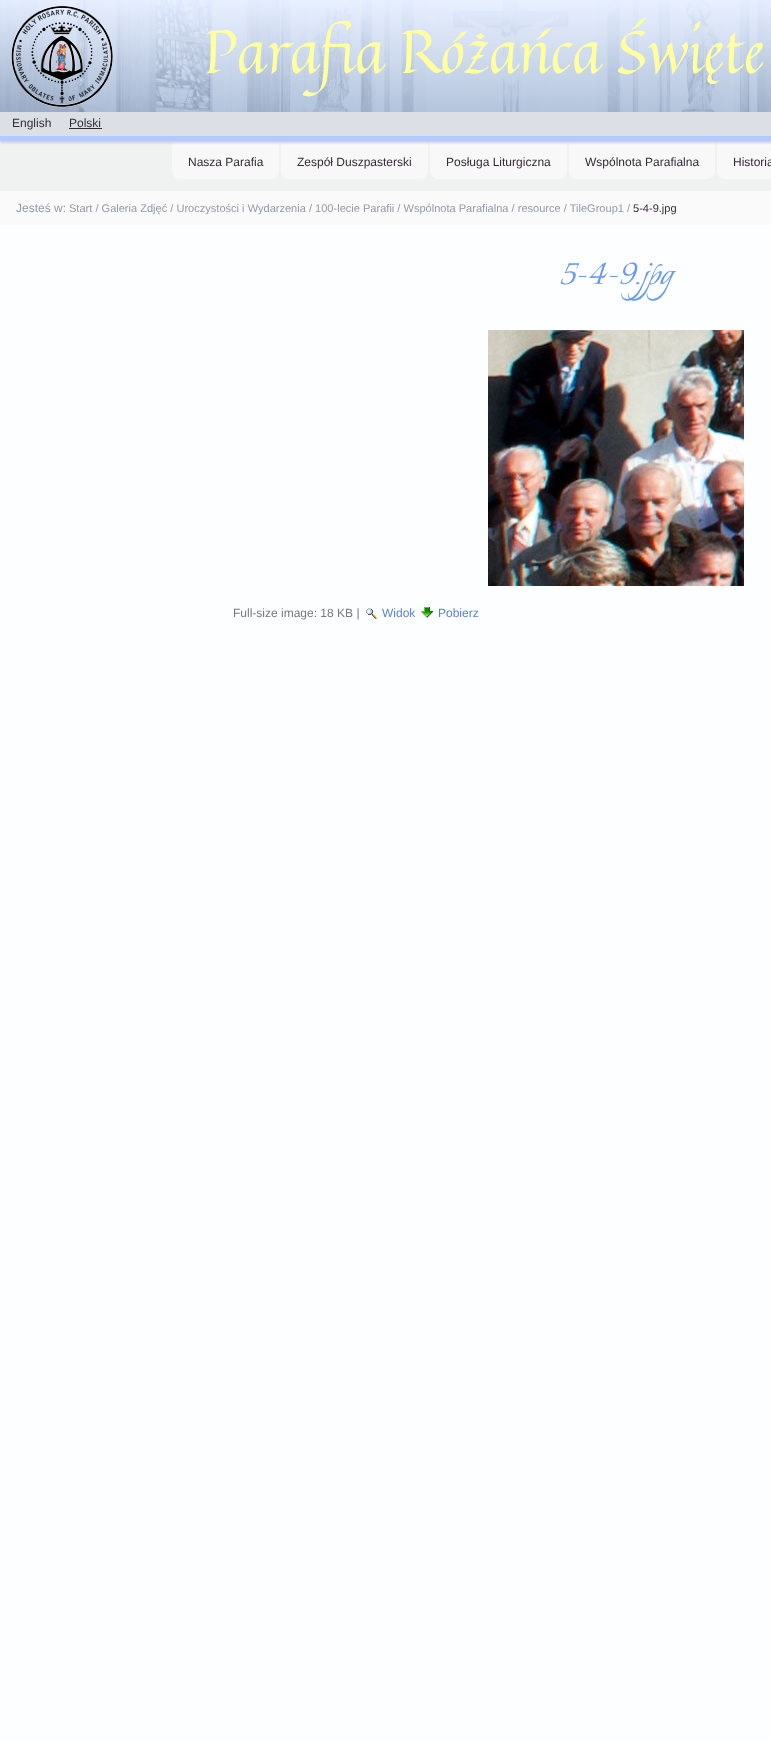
<!DOCTYPE html>
<meta charset="utf-8">
<style>body { margin: 0 } canvas { display: block }</style>
<canvas id="canvas" width="771" height="1741"></canvas>
<script type="module">
  const canvas = document.getElementById("canvas");
  const g = canvas.getContext("2d");
  g.miterLimit = 4;
  g.fontKerning = "normal";
  function drawText(s, x, y, [font, color]) {
    g.font = font;
    g.fillStyle = color;
    g.fillText(s, x, y);
  }
  function fillBox(x, y, w, h, color) {
    g.fillStyle = color;
    g.fillRect(x, y, w, h);
  }
  async function drawPicture(src, x, y, w, h) {
    const img = new Image();
    img.src = src;
    await img.decode();
    g.drawImage(img, x, y, w, h);
  }

  const s1 = ["60px Quintessential", "#FFFF9F"];
  const s2 = ["12px Liberation Sans", "#332C34"];
  const s3 = ["12px Liberation Sans", "#929AA6"];
  const s4 = ["11.05px Liberation Sans", "#929AA6"];
  const s5 = ["11.05px Liberation Sans", "#332C34"];
  const s6 = ["48px Italianno", "#6B99F5"];
  const s7 = ["12px Liberation Sans", "#76797C"];
  const s8 = ["12px Liberation Sans", "#5981D2"];

  fillBox(0, 0, 771, 1741, "#FDFEFF");
  fillBox(0, 141, 771, 50, "#F0F2F2");
  await drawPicture("pic1.png", 0, 0, 771, 112);
  await drawPicture("pic2.png", 11, 6, 102, 102);
  drawText("Parafia Różańca Święte", 204, 73, s1);
  g.fillStyle = "#F8F8F8";
  g.beginPath();
  g.roundRect(172, 141, 107, 38, [0, 0, 8, 8]);
  g.fill();
  g.beginPath();
  g.roundRect(281, 141, 147, 38, [0, 0, 8, 8]);
  g.fill();
  g.beginPath();
  g.roundRect(430, 141, 137, 38, [0, 0, 8, 8]);
  g.fill();
  g.beginPath();
  g.roundRect(569, 141, 146, 38, [0, 0, 8, 8]);
  g.fill();
  g.beginPath();
  g.moveTo(717, 141);
  g.lineTo(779, 141);
  g.lineTo(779, 171);
  g.bezierCurveTo(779, 175.5, 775.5, 179, 771, 179);
  g.lineTo(725, 179);
  g.bezierCurveTo(720.5, 179, 717, 175.5, 717, 171);
  g.closePath();
  g.fill();
  g.fillStyle = "#CCD0D6";
  g.filter = "blur(1px)";
  g.beginPath();
  g.rect(0, 114, 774, 29);
  g.fill();
  g.filter = "none";
  fillBox(0, 112, 771, 24, "#DCE0E6");
  fillBox(0, 136, 771, 5, "#B1CBFF");
  drawText("English", 12, 127, s2);
  drawText("Polski", 69, 127, s2);
  fillBox(69, 128, 33, 1, "#332C34");
  drawText("Nasza Parafia", 188, 166, s2);
  drawText("Zespół Duszpasterski", 297, 166, s2);
  drawText("Posługa Liturgiczna", 446, 166, s2);
  drawText("Wspólnota Parafialna", 585, 166, s2);
  drawText("Historia", 733, 166, s2);
  fillBox(0, 191, 771, 34, "#FAFAFA");
  drawText("Jesteś w:", 16, 212, s3);
  drawText("Start / Galeria Zdjęć / Uroczystości i Wydarzenia / 100-lecie Parafii / Wspólnota Parafialna / resource / TileGroup1 /", 69, 212, s4);
  drawText("5-4-9.jpg", 633, 212, s5);
  drawText("5-4-9.jpg", 559, 284, s6);
  await drawPicture("pic3.png", 488, 330, 256, 256);
  drawText("Full-size image: 18 KB |", 233, 617, s7);
  await drawPicture("pic4.png", 366, 608, 11, 11);
  drawText("Widok", 382, 617, s8);
  await drawPicture("pic5.png", 421, 607, 12, 11);
  drawText("Pobierz", 438, 617, s8);
</script>
